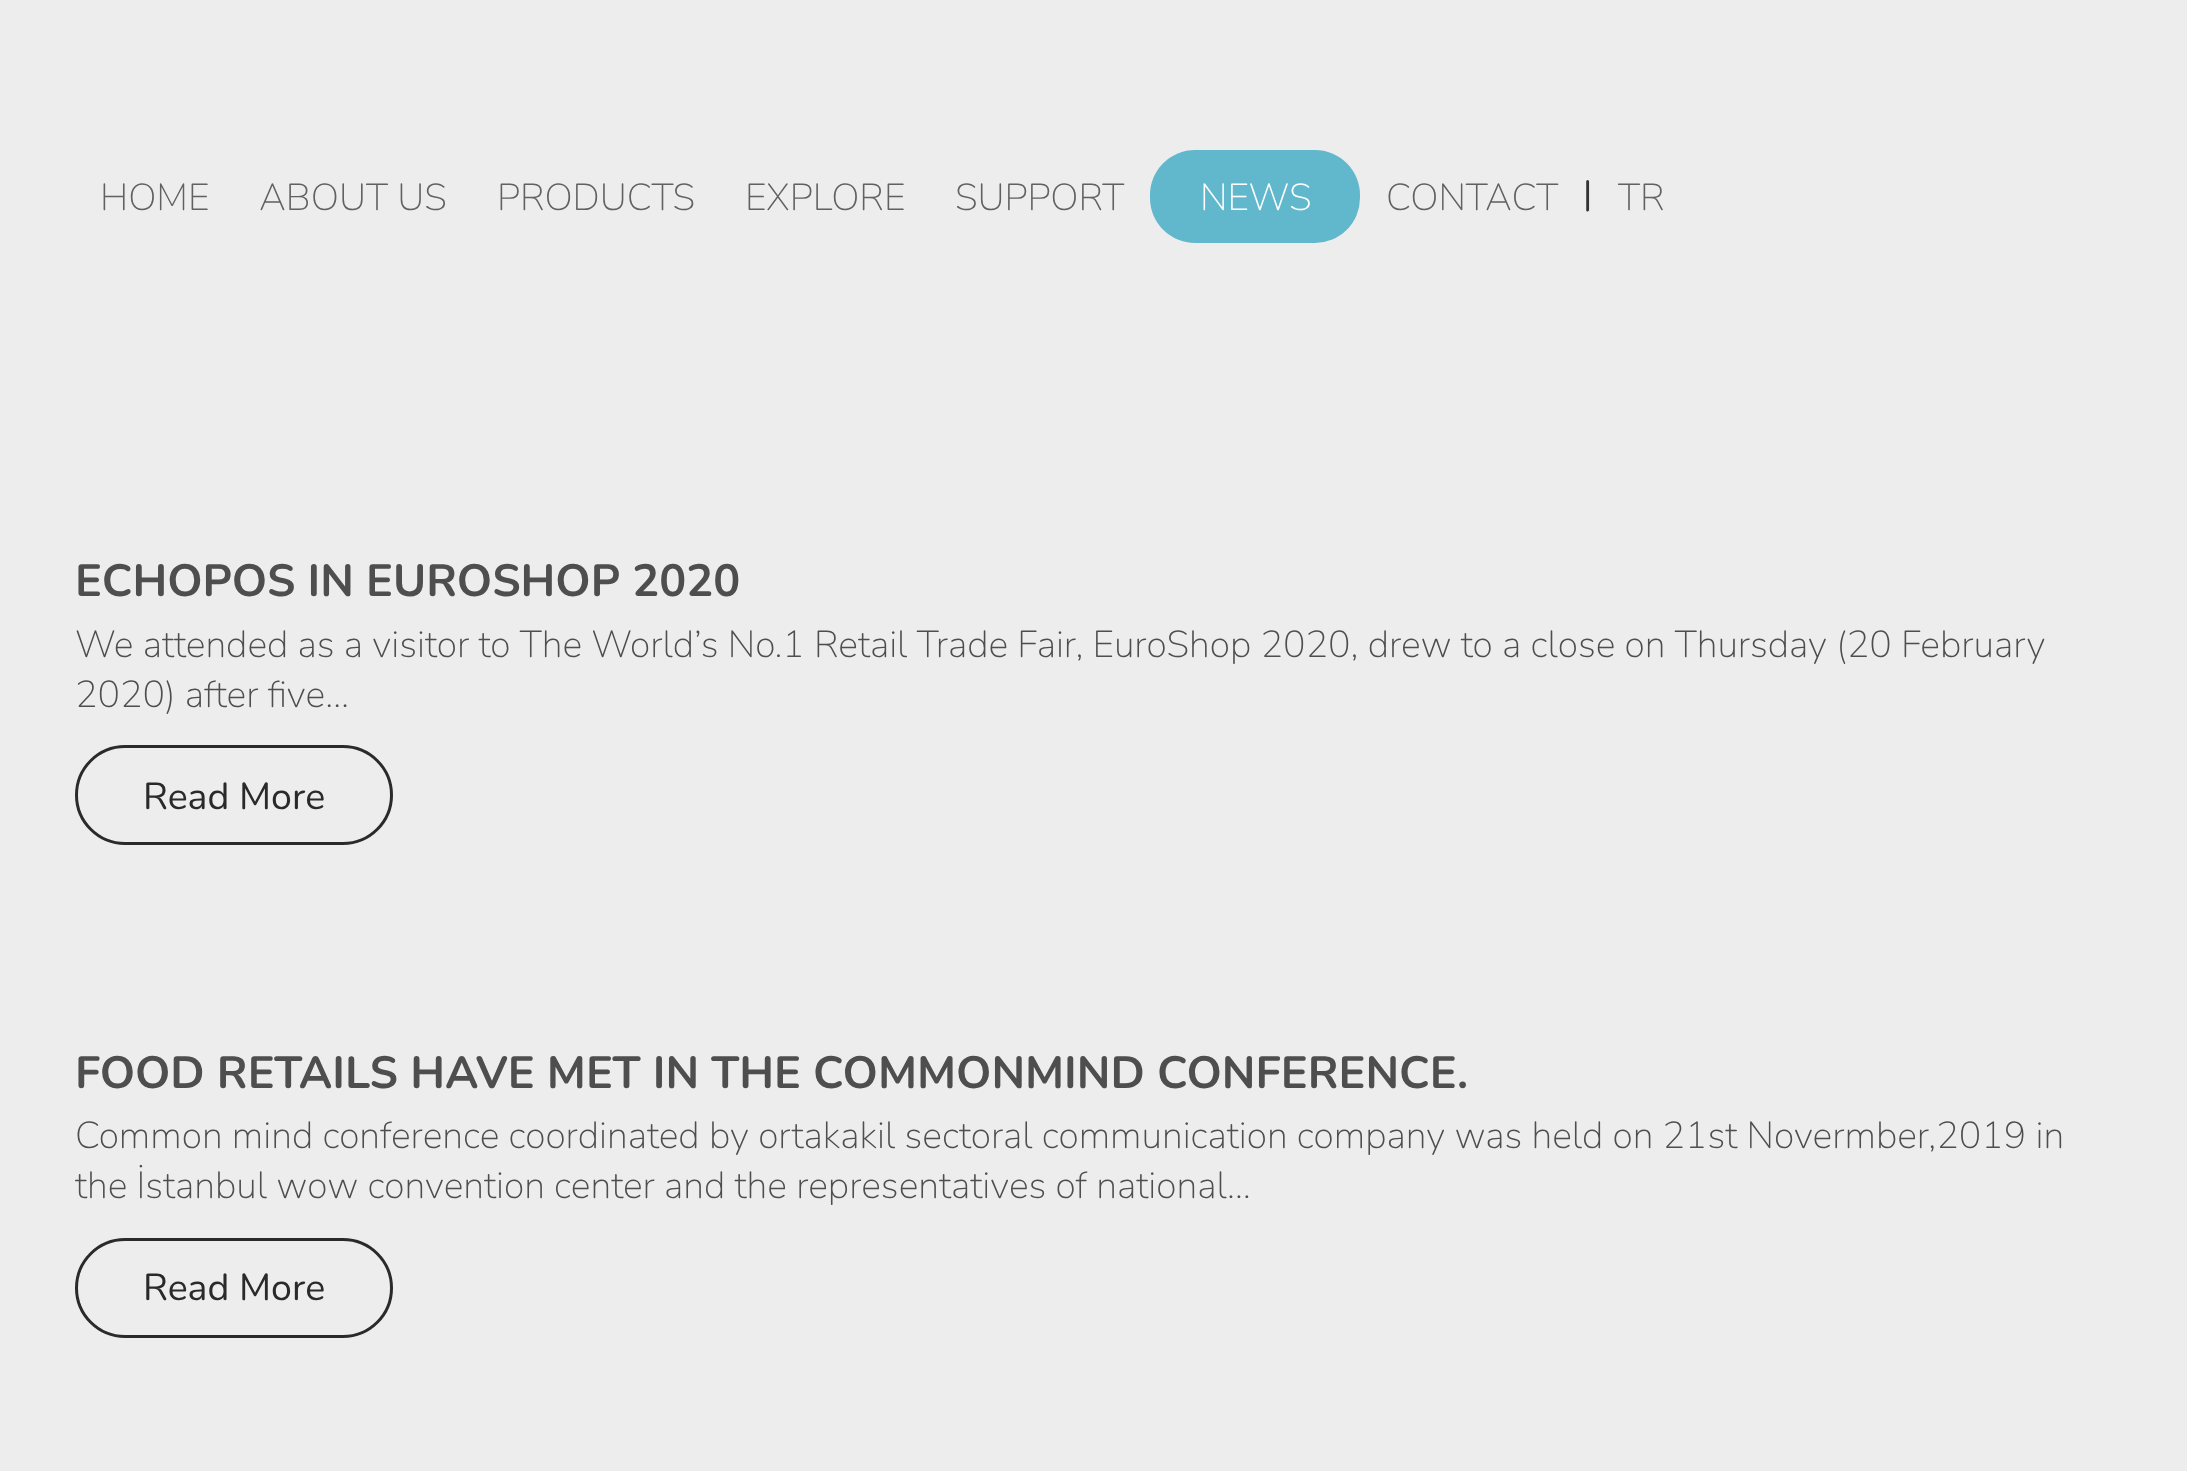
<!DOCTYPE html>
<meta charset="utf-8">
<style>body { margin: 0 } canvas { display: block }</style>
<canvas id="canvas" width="2187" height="1471"></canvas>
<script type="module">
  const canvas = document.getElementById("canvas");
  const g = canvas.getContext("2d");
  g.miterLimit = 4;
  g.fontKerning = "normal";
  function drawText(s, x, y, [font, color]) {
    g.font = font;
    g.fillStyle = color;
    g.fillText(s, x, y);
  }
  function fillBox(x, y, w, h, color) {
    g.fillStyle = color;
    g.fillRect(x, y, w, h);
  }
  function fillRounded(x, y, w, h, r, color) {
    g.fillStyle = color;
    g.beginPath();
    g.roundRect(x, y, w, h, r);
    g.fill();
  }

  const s1 = ["200 37.5px Nunito", "#616161"];
  const s2 = ["200 37.5px Nunito", "#FFFFFF"];
  const s3 = ["35px Nunito", "#333333"];
  const s4 = ["bold 45px Nunito", "#4F4E4E"];
  const s5 = ["200 37.5px Nunito", "#4F4E4E"];
  const s6 = ["37.5px Nunito", "#2A2A2A"];

  fillBox(0, 0, 2187, 1471, "#EDEDED");
  drawText("HOME", 100, 210, s1);
  drawText("ABOUT US", 259, 210, s1);
  drawText("PRODUCTS", 497, 210, s1);
  drawText("EXPLORE", 745, 210, s1);
  drawText("SUPPORT", 955, 210, s1);
  fillRounded(1150, 150, 210, 93, 45, "#61B8CD");
  drawText("NEWS", 1200, 210, s2);
  drawText("CONTACT", 1386, 210, s1);
  drawText("|", 1583, 205, s3);
  drawText("TR", 1618, 210, s1);
  drawText("ECHOPOS IN EUROSHOP 2020", 75, 596, s4);
  drawText("We attended as a visitor to The World’s No.1 Retail Trade Fair, EuroShop 2020, drew to a close on Thursday (20 February", 75, 657, s5);
  drawText("2020) after five…", 75, 707, s5);
  g.beginPath();
  g.roundRect(76.5, 746.5, 315, 97, 48.5);
  g.strokeStyle = "#2A2A2A";
  g.lineWidth = 3;
  g.stroke();
  drawText("Read More", 143, 809, s6);
  drawText("FOOD RETAILS HAVE MET IN THE COMMONMIND CONFERENCE.", 75, 1088, s4);
  drawText("Common mind conference coordinated by ortakakil sectoral communication company was held on 21st Novermber,2019 in", 75, 1148, s5);
  drawText("the İstanbul wow convention center and the representatives of national…", 75, 1198, s5);
  g.beginPath();
  g.roundRect(76.5, 1239.5, 315, 97, 48.5);
  g.stroke();
  drawText("Read More", 143, 1300, s6);
</script>
